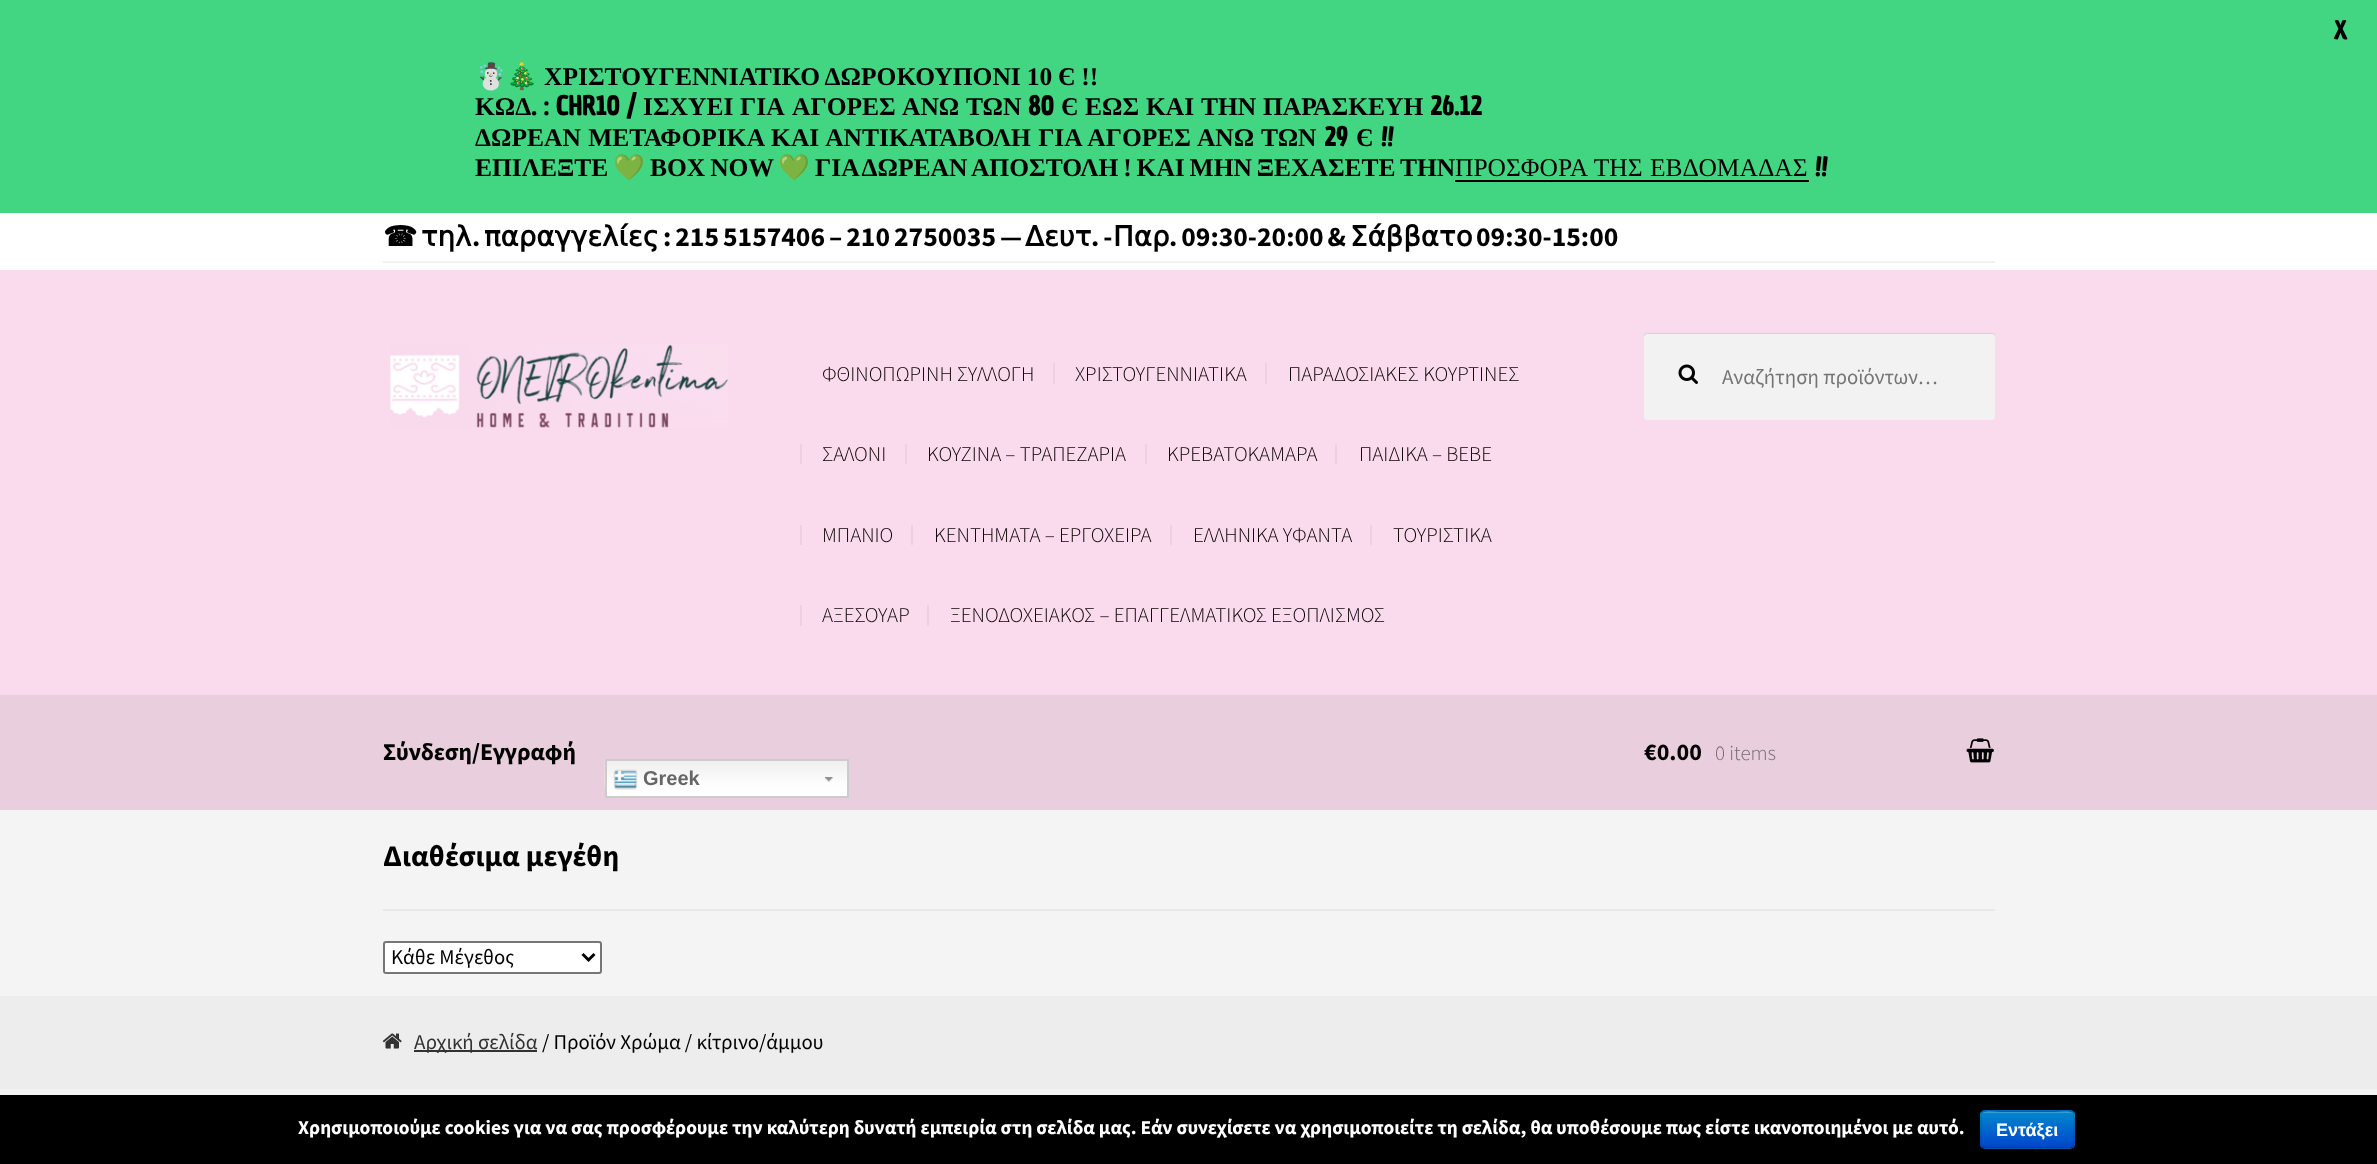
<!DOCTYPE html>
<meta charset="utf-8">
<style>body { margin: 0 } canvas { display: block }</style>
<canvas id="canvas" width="2377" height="1164"></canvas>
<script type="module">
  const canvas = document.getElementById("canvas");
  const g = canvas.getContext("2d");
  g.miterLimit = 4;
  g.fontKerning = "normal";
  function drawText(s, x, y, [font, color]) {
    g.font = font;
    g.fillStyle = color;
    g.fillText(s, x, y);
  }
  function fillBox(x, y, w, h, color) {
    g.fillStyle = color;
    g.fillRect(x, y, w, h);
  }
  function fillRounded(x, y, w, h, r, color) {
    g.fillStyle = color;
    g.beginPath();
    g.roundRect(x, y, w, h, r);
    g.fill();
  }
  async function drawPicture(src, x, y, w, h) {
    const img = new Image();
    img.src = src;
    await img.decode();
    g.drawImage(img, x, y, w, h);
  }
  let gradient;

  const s1 = ["bold 24px Chau Philomene One", "#000000"];
  const s2 = ["bold 25.5px Noto Color Emoji", "#000000"];
  const s3 = ["bold 25.5px Liberation Serif", "#000000"];
  const s4 = ["bold 25.5px Chau Philomene One", "#000000"];
  const s5 = ["25.5px Liberation Serif", "#000000"];
  const s6 = ["bold 27.6px DejaVu Sans", "#000000"];
  const s7 = ["bold 27.6px Source Sans Pro", "#000000"];
  const s8 = ["300 21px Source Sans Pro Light", "#0A0100"];
  const s9 = ["21px Source Sans Pro", "#757575"];
  const s10 = ["bold 24px Source Sans Pro", "#000000"];
  const s11 = ["bold 20px Liberation Sans", "#666666"];
  const s12 = ["300 21px Source Sans Pro Light", "#75686F"];
  const s13 = ["bold 29.75px Source Sans Pro", "#000000"];
  const s14 = ["21px Source Sans Pro", "#000000"];
  const s15 = ["21px Source Sans Pro", "#323232"];
  const s16 = ["bold 19.5px Source Sans Pro", "#FFFFFF"];
  const s17 = ["bold 18px Liberation Sans", "#FFFFFF"];

  fillBox(0, 0, 2377, 1164, "#F4F4F4");
  fillBox(0, 0, 2377, 213, "#42D682");
  drawText("X", 2333, 39, s1);
  drawText("☃️🎄", 475, 85, s2);
  g.wordSpacing = "-0.5px";
  drawText("ΧΡΙΣΤΟΥΓΕΝΝΙΑΤΙΚΟ ΔΩΡΟΚΟΥΠΟΝΙ 10 Є !!", 544, 85, s3);
  g.wordSpacing = "0px";
  drawText("ΚΩΔ", 475, 115, s3);
  drawText(". : CHR10 /", 531, 115, s4);
  drawText("ΙΣΧΥΕΙ", 643, 115, s3);
  drawText("ΓΙΑ", 740, 115, s3);
  drawText("ΑΓΟΡΕΣ", 792, 115, s3);
  drawText("ΑΝΩ", 902, 115, s3);
  drawText("ΤΩΝ", 966, 115, s3);
  drawText("80", 1028, 115, s4);
  drawText("Є", 1061, 115, s3);
  drawText("ΕΩΣ", 1085, 115, s3);
  drawText("ΚΑΙ", 1146, 115, s3);
  drawText("ΤΗΝ", 1201, 115, s3);
  drawText("ΠΑΡΑΣΚΕΥΗ", 1263, 115, s3);
  drawText("26.12", 1430, 115, s4);
  g.wordSpacing = "1px";
  drawText("ΔΩΡΕΑΝ ΜΕΤΑΦΟΡΙΚΑ ΚΑΙ ΑΝΤΙΚΑΤΑΒΟΛΗ ΓΙΑ ΑΓΟΡΕΣ ΑΝΩ ΤΩΝ", 475, 146, s3);
  g.wordSpacing = "0px";
  drawText("29", 1324, 146, s4);
  drawText("Є", 1356, 146, s3);
  drawText("!!", 1381, 146, s4);
  drawText("ΕΠΙΛΕΞΤΕ", 475, 176, s3);
  drawText("💚", 613, 176, s2);
  g.wordSpacing = "-1.5px";
  drawText("BOX NOW", 650, 176, s3);
  g.wordSpacing = "0px";
  drawText("💚", 778, 176, s2);
  g.wordSpacing = "-1.5px";
  drawText("ΓΙΑ ΔΩΡΕΑΝ ΑΠΟΣΤΟΛΗ ! KAI ΜΗΝ ΞΕΧΑΣΕΤΕ ΤΗΝ", 815, 176, s3);
  fillBox(1455, 180, 354, 2, "#000000");
  g.wordSpacing = "1px";
  drawText("ΠΡΟΣΦΟΡΑ ΤΗΣ ΕΒΔΟΜΑΔΑΣ", 1455, 176, s5);
  g.wordSpacing = "0px";
  drawText("!!", 1815, 176, s4);
  fillBox(0, 213, 2377, 57, "#FFFFFF");
  fillBox(383, 261, 1612, 2, "#F2F2F2");
  drawText("☎", 383, 246, s6);
  drawText("τηλ", 421, 246, s6);
  drawText(".", 472, 246, s7);
  drawText("παραγγελίες", 484, 246, s6);
  g.wordSpacing = "-1.5px";
  drawText(": 215 5157406 – 210 2750035 —", 663, 246, s7);
  g.wordSpacing = "0px";
  drawText("Δευτ", 1025, 246, s6);
  g.wordSpacing = "-1.5px";
  drawText(". -", 1091, 246, s7);
  g.wordSpacing = "0px";
  drawText("Παρ", 1113, 246, s6);
  g.wordSpacing = "-1.5px";
  drawText(". 09:30-20:00 &", 1169, 246, s7);
  g.wordSpacing = "0px";
  drawText("Σάββατο", 1350, 246, s6);
  drawText("09:30-15:00", 1476, 246, s7);
  fillBox(0, 270, 2377, 425, "#F9DBED");
  await drawPicture("pic1.png", 390, 344, 338, 84);
  drawText("ΦΘΙΝΟΠΩΡΙΝΗ ΣΥΛΛΟΓΗ", 822, 381, s8);
  fillBox(1053, 363, 2, 21, "#EDD0E1");
  drawText("ΧΡΙΣΤΟΥΓΕΝΝΙΑΤΙΚΑ", 1075, 381, s8);
  fillBox(1265, 363, 2, 21, "#EDD0E1");
  drawText("ΠΑΡΑΔΟΣΙΑΚΕΣ ΚΟΥΡΤΙΝΕΣ", 1288, 381, s8);
  fillBox(800, 444, 2, 20, "#EDD0E1");
  drawText("ΣΑΛΟΝΙ", 822, 461, s8);
  fillBox(905, 444, 2, 20, "#EDD0E1");
  drawText("ΚΟΥΖΙΝΑ – ΤΡΑΠΕΖΑΡΙΑ", 927, 461, s8);
  fillBox(1145, 444, 2, 20, "#EDD0E1");
  drawText("ΚΡΕΒΑΤΟΚΑΜΑΡΑ", 1167, 461, s8);
  fillBox(1335, 444, 2, 20, "#EDD0E1");
  drawText("ΠΑΙΔΙΚΑ – BEBE", 1359, 461, s8);
  fillBox(800, 525, 2, 20, "#EDD0E1");
  drawText("ΜΠΑΝΙΟ", 822, 542, s8);
  fillBox(911, 525, 2, 20, "#EDD0E1");
  drawText("ΚΕΝΤΗΜΑΤΑ – ΕΡΓΟΧΕΙΡΑ", 934, 542, s8);
  fillBox(1170, 525, 2, 20, "#EDD0E1");
  drawText("ΕΛΛΗΝΙΚΑ ΥΦΑΝΤΑ", 1193, 542, s8);
  fillBox(1370, 525, 2, 20, "#EDD0E1");
  drawText("ΤΟΥΡΙΣΤΙΚΑ", 1393, 542, s8);
  fillBox(800, 605, 2, 21, "#EDD0E1");
  drawText("ΑΞΕΣΟΥΑΡ", 822, 622, s8);
  fillBox(927, 605, 2, 21, "#EDD0E1");
  drawText("ΞΕΝΟΔΟΧΕΙΑΚΟΣ – ΕΠΑΓΓΕΛΜΑΤΙΚΟΣ ΕΞΟΠΛΙΣΜΟΣ", 950, 622, s8);
  fillRounded(1644, 333, 351, 87, 3, "#F2F2F2");
  await drawPicture("pic2.png", 1678, 364, 20, 20);
  g.fillStyle = "rgba(0, 0, 0, 0.12)";
  g.beginPath();
  g.moveTo(1647, 334);
  g.lineTo(1992, 334);
  g.bezierCurveTo(1994, 334, 1995, 336, 1995, 338);
  g.lineTo(1995, 336);
  g.bezierCurveTo(1995, 334, 1994, 333, 1992, 333);
  g.lineTo(1647, 333);
  g.bezierCurveTo(1645, 333, 1644, 334, 1644, 336);
  g.lineTo(1644, 338);
  g.bezierCurveTo(1644, 336, 1645, 334, 1647, 334);
  g.closePath();
  g.fill();
  drawText("Αναζήτηση προϊόντων…", 1722, 384, s9);
  fillBox(0, 695, 2377, 115, "#E9CFDE");
  drawText("Σύνδεση/Εγγραφή", 383, 760, s10);
  fillBox(607, 787, 240, 9, "#FFFFFF");
  await drawPicture("pic3.png", 604, 759, 243, 29);
  await drawPicture("pic4.png", 825, 777, 8, 5);
  g.strokeStyle = "#CCCCCC";
  g.lineWidth = 2;
  g.strokeRect(606, 760, 242, 37);
  await drawPicture("pic5.png", 613, 769, 25, 21);
  drawText("Greek", 643, 785, s11);
  drawText("€0.00", 1644, 760, s10);
  drawText("0 items", 1715, 760, s12);
  await drawPicture("pic6.png", 1966, 738, 28, 25);
  fillBox(383, 909, 1612, 2, "#E8E8E8");
  drawText("Διαθέσιμα μεγέθη", 383, 866, s13);
  g.fillStyle = "#FFFFFF";
  g.beginPath();
  g.roundRect(384, 942, 217, 31, 2);
  g.fill();
  g.strokeStyle = "#767676";
  g.stroke();
  g.beginPath();
  g.moveTo(582.5, 954);
  g.lineTo(588.5, 960);
  g.lineTo(594.5, 954);
  g.strokeStyle = "#000000";
  g.lineWidth = 3;
  g.stroke();
  drawText("Κάθε Μέγεθος", 391, 964, s14);
  fillBox(0, 996, 2377, 93, "#EDEDED");
  await drawPicture("pic7.png", 382, 1033, 20, 16);
  fillBox(414, 1050, 123, 2, "#323232");
  drawText("Αρχική σελίδα", 414, 1049, s15);
  drawText("/ Προϊόν Χρώμα / κίτρινο/άμμου", 542, 1049, s14);
  fillBox(0, 1095, 2377, 69, "#000000");
  drawText("Χρησιμοποιούμε cookies για να σας προσφέρουμε την καλύτερη δυνατή εμπειρία στη σελίδα μας. Εάν συνεχίσετε να χρησιμοποιείτε τη σελίδα, θα υποθέσουμε πως είστε ικανοποιημένοι με αυτό.", 298, 1134, s16);
  fillRounded(1980, 1110, 95, 39, 5, "#006DCC");
  g.save();
  g.beginPath();
  g.roundRect(1980, 1110, 95, 39, 5);
  g.clip();
  gradient = g.createLinearGradient(2027, 1112, 2027, 1148);
  gradient.addColorStop(0, "#0088CC");
  gradient.addColorStop(1, "#0044CC");
  g.fillStyle = gradient;
  g.fillRect(1980, 1112, 95, 36);
  g.restore();
  g.fillStyle = "rgba(255, 255, 255, 0.2)";
  g.beginPath();
  g.moveTo(1984, 1113);
  g.lineTo(2070, 1113);
  g.bezierCurveTo(2072, 1113, 2073, 1114, 2073, 1116);
  g.bezierCurveTo(2073, 1108, 2059, 1112, 2056, 1112);
  g.lineTo(1999, 1112);
  g.bezierCurveTo(1996, 1112, 1982, 1108, 1982, 1116);
  g.bezierCurveTo(1982, 1114, 1983, 1113, 1984, 1113);
  g.closePath();
  g.fill();
  g.beginPath();
  g.moveTo(2072.5, 1147);
  g.lineTo(2070.5, 1148);
  g.lineTo(1984, 1148);
  g.lineTo(1982, 1147);
  g.strokeStyle = "rgba(0, 0, 0, 0.25)";
  g.lineWidth = 1.5;
  g.stroke();
  g.beginPath();
  g.moveTo(1982, 1147);
  g.bezierCurveTo(1980, 1145.5, 1981, 1141.5, 1981, 1139.5);
  g.lineTo(1981, 1129.5);
  g.bezierCurveTo(1981, 1108, 1977, 1111, 1999, 1111);
  g.lineTo(2056, 1111);
  g.bezierCurveTo(2077.5, 1111, 2074, 1108, 2074, 1129.5);
  g.lineTo(2074, 1139.5);
  g.bezierCurveTo(2074, 1141.5, 2074.5, 1145.5, 2072.5, 1147);
  g.strokeStyle = "rgba(0, 0, 0, 0.1)";
  g.stroke();
  drawText("Εντάξει", 1996, 1136, s17);
</script>
